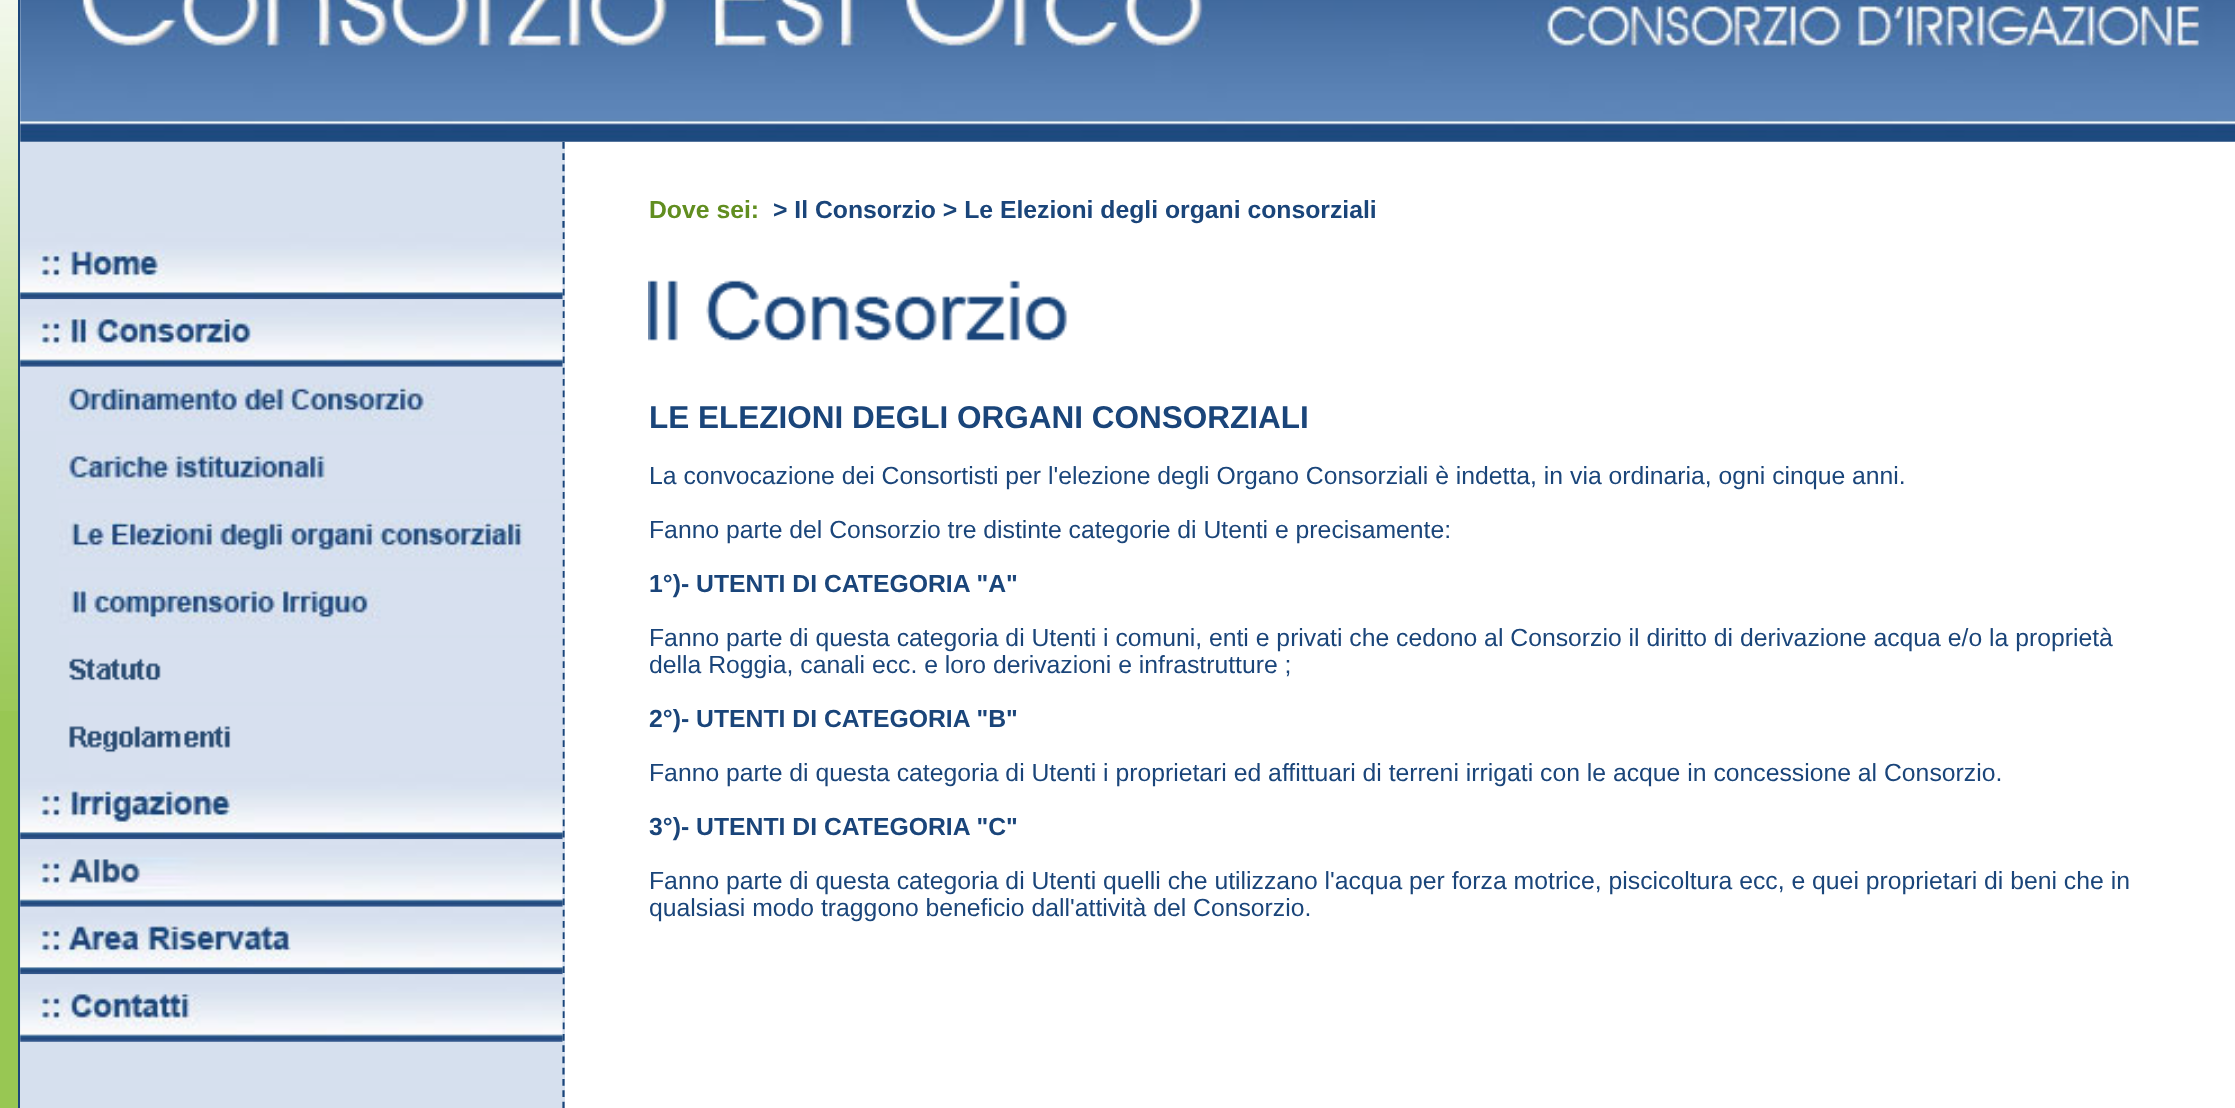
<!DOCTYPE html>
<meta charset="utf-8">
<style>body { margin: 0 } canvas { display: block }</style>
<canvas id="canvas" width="2235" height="1108"></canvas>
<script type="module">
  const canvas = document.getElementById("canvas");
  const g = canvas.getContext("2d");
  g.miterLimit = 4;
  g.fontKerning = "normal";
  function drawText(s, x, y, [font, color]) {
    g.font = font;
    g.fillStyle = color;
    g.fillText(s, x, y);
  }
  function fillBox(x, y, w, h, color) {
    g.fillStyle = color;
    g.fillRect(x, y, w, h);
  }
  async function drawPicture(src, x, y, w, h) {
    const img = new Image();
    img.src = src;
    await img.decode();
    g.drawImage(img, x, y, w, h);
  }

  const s1 = ["bold 24.75px Liberation Sans", "#618E20"];
  const s2 = ["bold 24.75px Liberation Sans", "#1A457A"];
  const s3 = ["bold 31.5px Liberation Sans", "#1A457A"];
  const s4 = ["24.75px Liberation Sans", "#1A457A"];

  fillBox(0, 0, 2235, 1108, "#98C753");
  await drawPicture("pic1.png", 0, 0, 18, 711);
  g.fillStyle = "#FFFFFF";
  g.beginPath();
  g.rect(19, -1, 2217, 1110);
  g.fill();
  g.strokeStyle = "#1A457A";
  g.lineWidth = 2;
  g.stroke();
  await drawPicture("pic2.png", 20, 0, 2215, 142);
  fillBox(20, 142, 545, 966, "#D6E0EE");
  g.beginPath();
  g.moveTo(563.5, 142);
  g.lineTo(563.5, 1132);
  g.lineWidth = 2.2;
  g.setLineDash([6.75, 4.54]);
  g.stroke();
  await drawPicture("pic3.png", 20, 232, 543, 68);
  await drawPicture("pic4.png", 20, 299, 543, 68);
  await drawPicture("pic5.png", 20, 366, 543, 65);
  await drawPicture("pic6.png", 56, 435, 507, 64);
  await drawPicture("pic7.png", 59, 503, 504, 64);
  await drawPicture("pic8.png", 59, 571, 504, 64);
  await drawPicture("pic9.png", 69, 638, 494, 64);
  await drawPicture("pic10.png", 69, 706, 494, 64);
  await drawPicture("pic11.png", 20, 774, 543, 66);
  await drawPicture("pic12.png", 20, 839, 543, 68);
  await drawPicture("pic13.png", 20, 906, 543, 69);
  await drawPicture("pic14.png", 20, 974, 543, 68);
  drawText("Dove sei:", 649, 218, s1);
  drawText("> Il Consorzio > Le Elezioni degli organi consorziali", 773, 218, s2);
  await drawPicture("pic15.png", 648, 280, 420, 61);
  drawText("LE ELEZIONI DEGLI ORGANI CONSORZIALI", 649, 428, s3);
  drawText("La convocazione dei Consortisti per l'elezione degli Organo Consorziali è indetta, in via ordinaria, ogni cinque anni.", 649, 484, s4);
  drawText("Fanno parte del Consorzio tre distinte categorie di Utenti e precisamente:", 649, 538, s4);
  drawText("1°)- UTENTI DI CATEGORIA \"A\"", 649, 592, s2);
  drawText("Fanno parte di questa categoria di Utenti i comuni, enti e privati che cedono al Consorzio il diritto di derivazione acqua e/o la proprietà", 649, 646, s4);
  drawText("della Roggia, canali ecc. e loro derivazioni e infrastrutture ;", 649, 673, s4);
  drawText("2°)- UTENTI DI CATEGORIA \"B\"", 649, 727, s2);
  drawText("Fanno parte di questa categoria di Utenti i proprietari ed affittuari di terreni irrigati con le acque in concessione al Consorzio.", 649, 781, s4);
  drawText("3°)- UTENTI DI CATEGORIA \"C\"", 649, 835, s2);
  drawText("Fanno parte di questa categoria di Utenti quelli che utilizzano l'acqua per forza motrice, piscicoltura ecc, e quei proprietari di beni che in", 649, 889, s4);
  drawText("qualsiasi modo traggono beneficio dall'attività del Consorzio.", 649, 916, s4);
</script>
